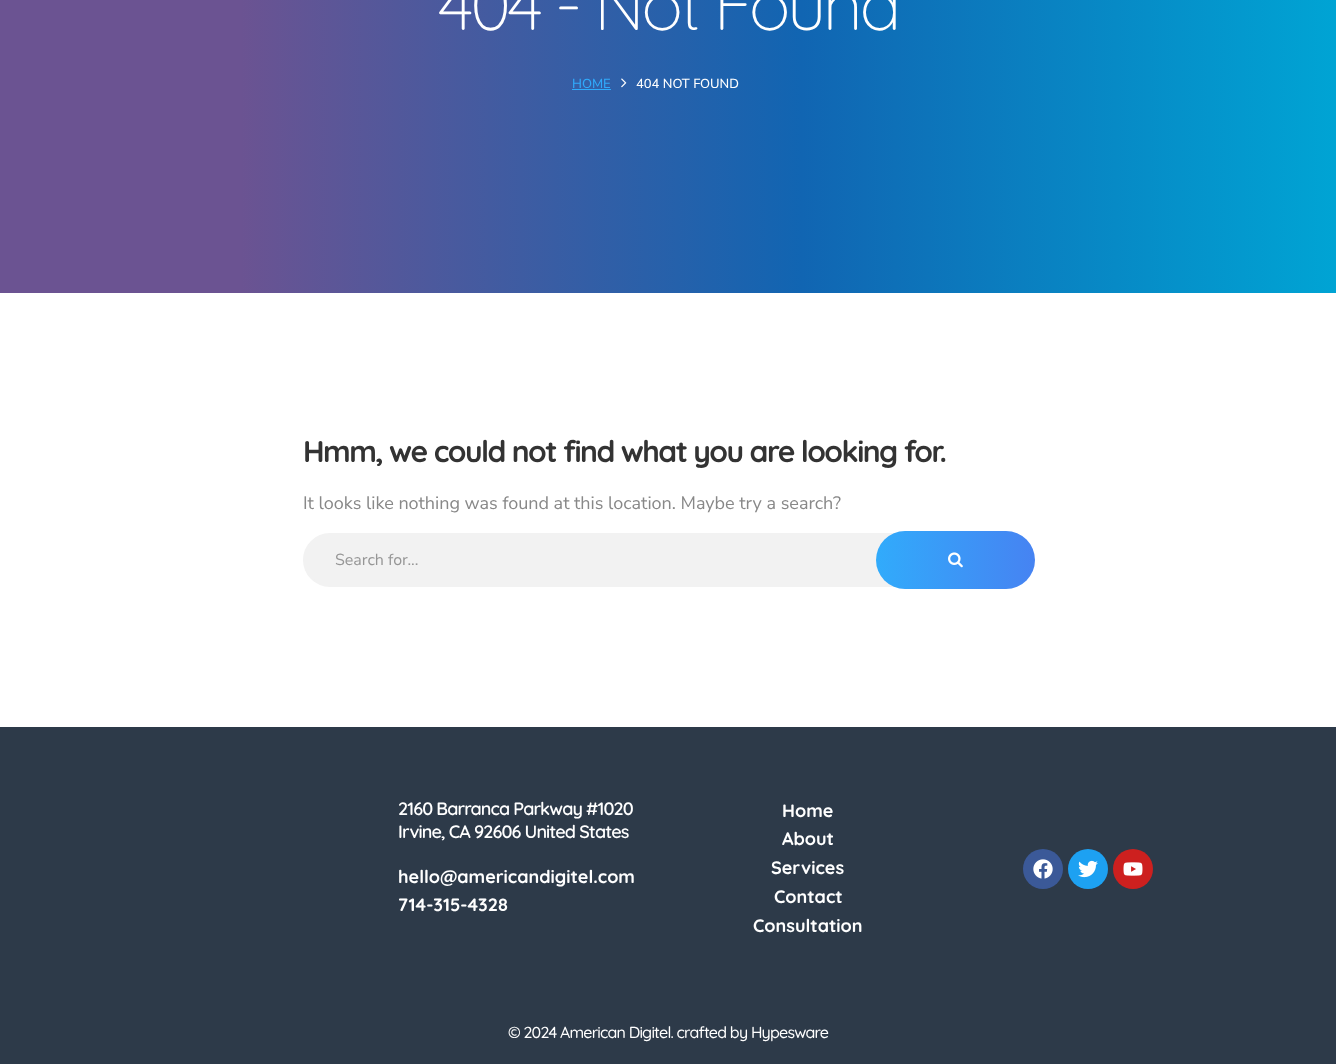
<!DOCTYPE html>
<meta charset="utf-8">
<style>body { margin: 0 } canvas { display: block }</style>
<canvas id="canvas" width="1336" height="1064"></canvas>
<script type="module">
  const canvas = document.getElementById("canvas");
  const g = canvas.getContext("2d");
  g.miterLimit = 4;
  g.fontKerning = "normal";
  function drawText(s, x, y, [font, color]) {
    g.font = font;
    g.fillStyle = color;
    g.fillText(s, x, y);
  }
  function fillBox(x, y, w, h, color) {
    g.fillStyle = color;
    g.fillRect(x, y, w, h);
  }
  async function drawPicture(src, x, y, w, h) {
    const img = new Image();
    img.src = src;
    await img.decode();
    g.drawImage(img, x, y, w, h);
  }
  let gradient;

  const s1 = ["300 70px Quicksand", "#FFFFFF"];
  const s2 = ["500 13px Nunito Sans", "#30AAFC"];
  const s3 = ["500 13px Nunito Sans", "#FFFFFF"];
  const s4 = ["bold 30px Quicksand", "#333333"];
  const s5 = ["18px Nunito Sans", "#888888"];
  const s6 = ["16px Nunito Sans", "#969696"];
  const s7 = ["600 18px Quicksand", "#FFFFFF"];
  const s8 = ["bold 18px Quicksand", "#FFFFFF"];
  const s9 = ["500 16px Quicksand", "#FFFFFF"];

  fillBox(0, 0, 1336, 1064, "#FFFFFF");
  gradient = g.createLinearGradient(0, 24, 1336, 23);
  gradient.addColorStop(0, "#6B5392");
  gradient.addColorStop(0.18, "#6B5392");
  gradient.addColorStop(0.6, "#1165B2");
  gradient.addColorStop(1, "#00A4D4");
  g.fillStyle = gradient;
  g.fillRect(0, 0, 1336, 293);
  g.letterSpacing = "-3.5px";
  drawText("404 - Not Found", 438, 30, s1);
  g.letterSpacing = "0px";
  drawText("HOME", 572, 88, s2);
  fillBox(572, 89, 39, 1, "#30AAFC");
  await drawPicture("pic1.png", 621, 78, 6, 10);
  drawText("404 NOT FOUND", 636, 88, s3);
  g.letterSpacing = "-1.5px";
  drawText("Hmm, we could not find what you are looking for.", 303, 462, s4);
  g.letterSpacing = "0px";
  drawText("It looks like nothing was found at this location. Maybe try a search?", 303, 509, s5);
  g.fillStyle = "#F2F2F2";
  g.beginPath();
  g.roundRect(304, 534, 623, 52, 26);
  g.fill();
  g.strokeStyle = "#F2F2F2";
  g.lineWidth = 2;
  g.stroke();
  drawText("Search for...", 335, 565, s6);
  gradient = g.createLinearGradient(876, 560, 1035, 560);
  gradient.addColorStop(0, "#31ABFB");
  gradient.addColorStop(1, "#4683F2");
  g.fillStyle = gradient;
  g.beginPath();
  g.roundRect(876, 531, 159, 58, 29);
  g.fill();
  await drawPicture("pic2.png", 948, 552, 15, 16);
  fillBox(0, 727, 1336, 337, "#2D3A49");
  g.letterSpacing = "-0.9px";
  drawText("2160 Barranca Parkway #1020", 398, 815, s7);
  drawText("Irvine, CA 92606 United States", 398, 838, s7);
  g.letterSpacing = "0px";
  drawText("hello@americandigitel.com", 398, 883, s8);
  drawText("714-315-4328", 398, 911, s8);
  drawText("Home", 782, 817, s8);
  drawText("About", 782, 845, s8);
  drawText("Services", 771, 874, s8);
  drawText("Contact", 774, 903, s8);
  drawText("Consultation", 753, 932, s8);
  g.fillStyle = "#3B5998";
  g.beginPath();
  g.arc(1043, 869, 20, 0, Math.PI * 2);
  g.fill();
  await drawPicture("pic3.png", 1033, 859, 20, 20);
  g.fillStyle = "#1DA1F2";
  g.beginPath();
  g.arc(1088, 869, 20, 0, Math.PI * 2);
  g.fill();
  await drawPicture("pic4.png", 1078, 860, 20, 18);
  g.fillStyle = "#CD201F";
  g.beginPath();
  g.arc(1133, 869, 20, 0, Math.PI * 2);
  g.fill();
  await drawPicture("pic5.png", 1123, 862, 20, 14);
  g.letterSpacing = "-0.8px";
  drawText("© 2024 American Digitel. crafted by Hypesware", 508, 1038, s9);
</script>
